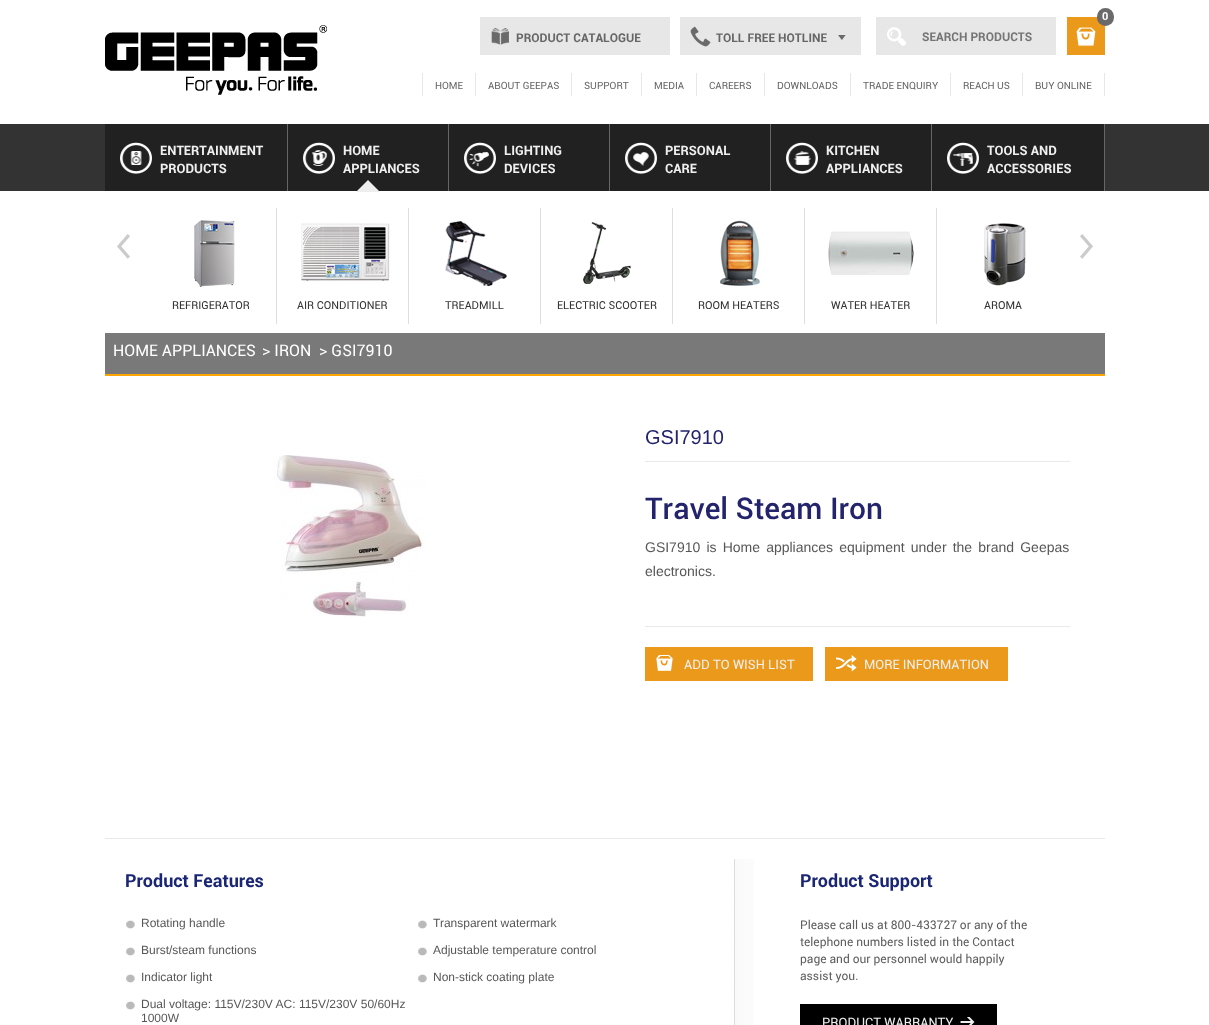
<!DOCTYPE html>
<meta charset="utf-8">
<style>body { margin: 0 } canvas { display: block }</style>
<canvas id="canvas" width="1209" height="1025"></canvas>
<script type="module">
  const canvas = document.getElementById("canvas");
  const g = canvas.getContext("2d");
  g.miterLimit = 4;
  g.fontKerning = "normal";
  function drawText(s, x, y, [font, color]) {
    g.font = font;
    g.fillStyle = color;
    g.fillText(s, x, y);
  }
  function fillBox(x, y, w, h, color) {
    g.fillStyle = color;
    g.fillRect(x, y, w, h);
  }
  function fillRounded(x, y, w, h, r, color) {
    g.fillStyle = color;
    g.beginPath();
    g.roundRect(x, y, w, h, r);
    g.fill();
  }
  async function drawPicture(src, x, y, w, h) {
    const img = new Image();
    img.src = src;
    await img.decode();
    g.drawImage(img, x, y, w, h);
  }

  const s1 = ["bold 11px Roboto", "#FFFFFF"];
  const s2 = ["bold 12px Roboto", "#666666"];
  const s3 = ["bold 12px Roboto", "#757575"];
  const s4 = ["10px Roboto", "#666666"];
  const s5 = ["bold 13px Roboto", "#EFEFEF"];
  const s6 = ["11px Roboto", "#333333"];
  const s7 = ["16px Roboto", "#FFFFFF"];
  const s8 = ["20px Liberation Sans", "#23246C"];
  const s9 = ["500 30px Roboto", "#23246C"];
  const s10 = ["14px Liberation Sans", "#575757"];
  const s11 = ["13px Roboto", "#EFEFEF"];
  const s12 = ["bold 18px Roboto", "#1A2674"];
  const s13 = ["12px Liberation Sans", "#575757"];
  const s14 = ["12px Roboto", "#5E5E5E"];

  fillBox(0, 0, 1209, 1025, "#FFFFFF");
  await drawPicture("pic1.png", 105, 25, 222, 70);
  fillBox(876, 17, 180, 38, "#E7E7E7");
  await drawPicture("pic2.png", 887, 27, 19, 19);
  fillBox(1067, 17, 38, 38, "#EB991A");
  await drawPicture("pic3.png", 1076, 27, 20, 19);
  fillRounded(1097, 8, 17, 18, 8.5, "#6A6A6A");
  drawText("0", 1102, 20, s1);
  fillBox(480, 17, 190, 38, "#E7E7E7");
  await drawPicture("pic4.png", 491, 28, 18, 17);
  drawText("PRODUCT CATALOGUE", 516, 42, s2);
  fillBox(680, 17, 181, 38, "#E7E7E7");
  await drawPicture("pic5.png", 690, 26, 21, 21);
  await drawPicture("pic6.png", 838, 35, 8, 5);
  drawText("TOLL FREE HOTLINE", 716, 42, s2);
  drawText("SEARCH PRODUCTS", 922, 41, s3);
  fillBox(1104, 73, 1, 23, "#E7E7E7");
  fillBox(422, 73, 1, 23, "#E7E7E7");
  drawText("HOME", 435, 89, s4);
  fillBox(475, 73, 1, 23, "#E7E7E7");
  drawText("ABOUT GEEPAS", 488, 89, s4);
  fillBox(571, 73, 1, 23, "#E7E7E7");
  drawText("SUPPORT", 584, 89, s4);
  fillBox(641, 73, 1, 23, "#E7E7E7");
  drawText("MEDIA", 654, 89, s4);
  fillBox(696, 73, 1, 23, "#E7E7E7");
  drawText("CAREERS", 709, 89, s4);
  fillBox(764, 73, 1, 23, "#E7E7E7");
  drawText("DOWNLOADS", 777, 89, s4);
  fillBox(850, 73, 1, 23, "#E7E7E7");
  drawText("TRADE ENQUIRY", 863, 89, s4);
  fillBox(950, 73, 1, 23, "#E7E7E7");
  drawText("REACH US", 963, 89, s4);
  fillBox(1022, 73, 1, 23, "#E7E7E7");
  drawText("BUY ONLINE", 1035, 89, s4);
  fillBox(0, 124, 1209, 67, "#333333");
  fillBox(287, 124, 818, 67, "#666666");
  fillBox(105, 124, 182, 67, "#212121");
  await drawPicture("pic7.png", 120, 142, 32, 32);
  drawText("ENTERTAINMENT", 160, 155, s5);
  drawText("PRODUCTS", 160, 173, s5);
  fillBox(288, 124, 160, 67, "#212121");
  await drawPicture("pic8.png", 303, 142, 32, 32);
  drawText("HOME", 343, 155, s5);
  drawText("APPLIANCES", 343, 173, s5);
  g.fillStyle = "#EEEEEE";
  g.beginPath();
  g.moveTo(380, 192);
  g.lineTo(356, 192);
  g.lineTo(368, 180);
  g.closePath();
  g.fill();
  await drawPicture("pic9.png", 117, 234, 13, 25);
  await drawPicture("pic10.png", 1080, 234, 13, 25);
  fillBox(276, 208, 1, 116, "#DEDEDE");
  await drawPicture("pic11.png", 194, 220, 41, 67);
  drawText("REFRIGERATOR", 172, 309, s6);
  fillBox(408, 208, 1, 116, "#DEDEDE");
  await drawPicture("pic12.png", 301, 223, 89, 59);
  drawText("AIR CONDITIONER", 297, 309, s6);
  fillBox(540, 208, 1, 116, "#DEDEDE");
  await drawPicture("pic13.png", 445, 221, 62, 65);
  drawText("TREADMILL", 445, 309, s6);
  fillBox(672, 208, 1, 116, "#DEDEDE");
  await drawPicture("pic14.png", 583, 222, 48, 62);
  drawText("ELECTRIC SCOOTER", 557, 309, s6);
  fillBox(804, 208, 1, 116, "#DEDEDE");
  await drawPicture("pic15.png", 720, 218, 42, 69);
  drawText("ROOM HEATERS", 698, 309, s6);
  fillBox(936, 208, 1, 116, "#DEDEDE");
  await drawPicture("pic16.png", 828, 231, 86, 44);
  drawText("WATER HEATER", 831, 309, s6);
  await drawPicture("pic17.png", 984, 223, 42, 63);
  drawText("AROMA", 984, 309, s6);
  fillBox(449, 124, 160, 67, "#212121");
  await drawPicture("pic18.png", 464, 142, 32, 32);
  drawText("LIGHTING", 504, 155, s5);
  drawText("DEVICES", 504, 173, s5);
  fillBox(610, 124, 160, 67, "#212121");
  await drawPicture("pic19.png", 625, 142, 32, 32);
  drawText("PERSONAL", 665, 155, s5);
  drawText("CARE", 665, 173, s5);
  fillBox(771, 124, 160, 67, "#212121");
  await drawPicture("pic20.png", 786, 142, 32, 32);
  drawText("KITCHEN", 826, 155, s5);
  drawText("APPLIANCES", 826, 173, s5);
  fillBox(932, 124, 172, 67, "#212121");
  await drawPicture("pic21.png", 947, 142, 32, 32);
  drawText("TOOLS AND", 987, 155, s5);
  drawText("ACCESSORIES", 987, 173, s5);
  fillBox(105, 333, 1000, 41, "#797979");
  fillBox(105, 374, 1000, 2, "#FFA500");
  drawText("HOME APPLIANCES", 113, 356, s7);
  drawText("> IRON", 262, 356, s7);
  drawText("> GSI7910", 319, 356, s7);
  fillBox(105, 838, 1000, 1, "#E9E9E9");
  await drawPicture("pic22.png", 274, 455, 151, 162);
  fillBox(645, 626, 425, 1, "#E9E9E9");
  fillBox(645, 461, 425, 1, "#E9E9E9");
  drawText("GSI7910", 645, 444, s8);
  drawText("Travel Steam Iron", 645, 519, s9);
  g.wordSpacing = "2.25px";
  drawText("GSI7910 is Home appliances equipment under the brand Geepas", 645, 552, s10);
  g.wordSpacing = "0px";
  drawText("electronics.", 645, 576, s10);
  fillBox(645, 647, 168, 34, "#EB991A");
  await drawPicture("pic23.png", 656, 655, 17, 16);
  drawText("ADD TO WISH LIST", 684, 669, s11);
  fillBox(825, 647, 183, 34, "#EB991A");
  await drawPicture("pic24.png", 836, 655, 21, 17);
  drawText("MORE INFORMATION", 864, 669, s11);
  drawText("Product Features", 125, 887, s12);
  await drawPicture("pic25.png", 126, 920, 9, 9);
  drawText("Rotating handle", 141, 927, s13);
  await drawPicture("pic25.png", 418, 920, 9, 9);
  drawText("Transparent watermark", 433, 927, s13);
  await drawPicture("pic25.png", 126, 947, 9, 9);
  drawText("Burst/steam functions", 141, 954, s13);
  await drawPicture("pic25.png", 418, 947, 9, 9);
  drawText("Adjustable temperature control", 433, 954, s13);
  await drawPicture("pic25.png", 126, 974, 9, 9);
  drawText("Indicator light", 141, 981, s13);
  await drawPicture("pic25.png", 418, 974, 9, 9);
  drawText("Non-stick coating plate", 433, 981, s13);
  await drawPicture("pic25.png", 126, 1001, 9, 9);
  drawText("Dual voltage: 115V/230V AC: 115V/230V 50/60Hz", 141, 1008, s13);
  drawText("1000W", 141, 1022, s13);
  await drawPicture("pic26.png", 735, 859, 19, 166);
  fillBox(734, 859, 1, 166, "#DDDDDD");
  drawText("Product Support", 800, 887, s12);
  drawText("Please call us at 800-433727 or any of the", 800, 929, s14);
  drawText("telephone numbers listed in the Contact", 800, 946, s14);
  drawText("page and our personnel would happily", 800, 963, s14);
  drawText("assist you.", 800, 980, s14);
  fillBox(800, 1004, 197, 21, "#000000");
  drawText("PRODUCT WARRANTY", 822, 1027, s11);
  await drawPicture("pic27.png", 960, 1017, 15, 8);
</script>
